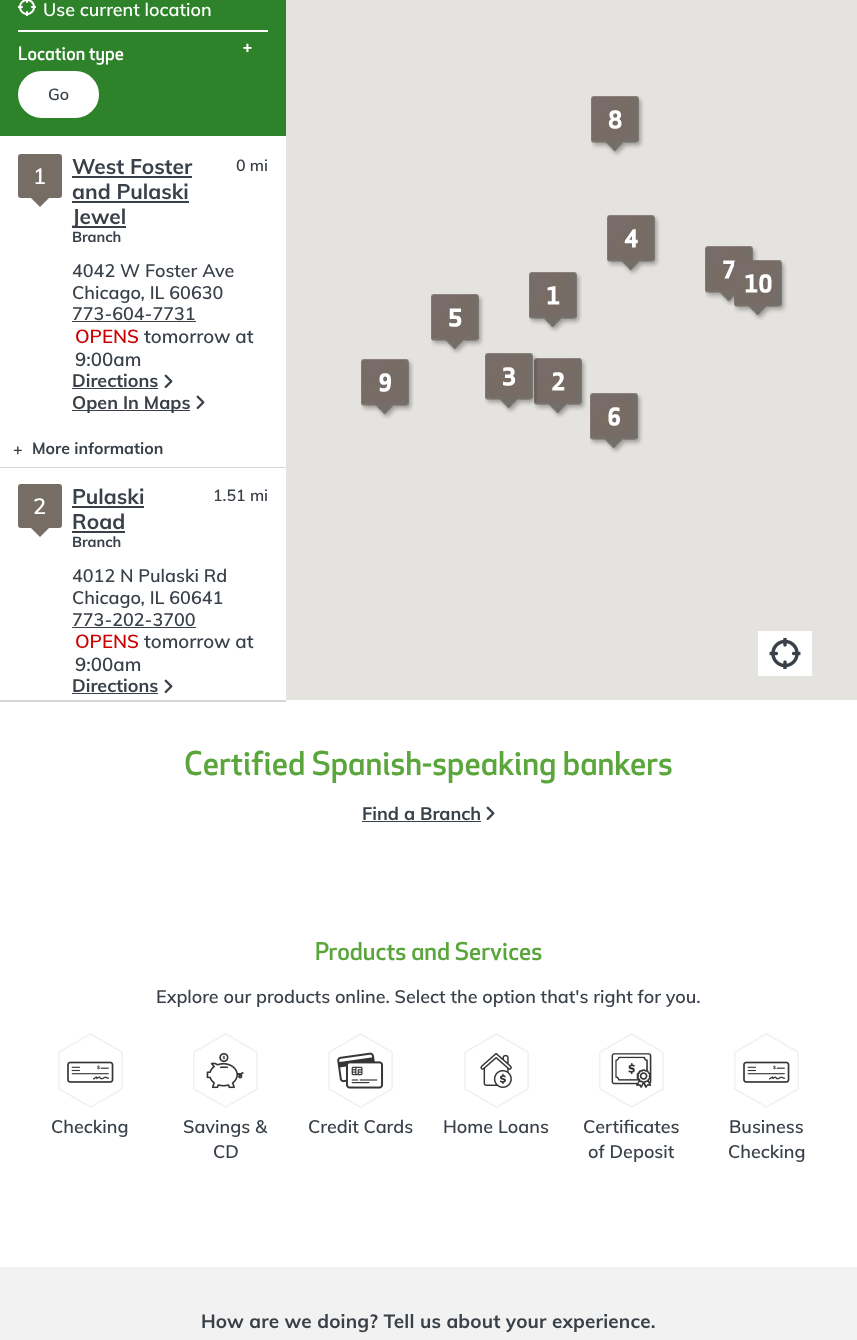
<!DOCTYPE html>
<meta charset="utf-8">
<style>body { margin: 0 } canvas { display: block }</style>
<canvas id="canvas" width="857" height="1340"></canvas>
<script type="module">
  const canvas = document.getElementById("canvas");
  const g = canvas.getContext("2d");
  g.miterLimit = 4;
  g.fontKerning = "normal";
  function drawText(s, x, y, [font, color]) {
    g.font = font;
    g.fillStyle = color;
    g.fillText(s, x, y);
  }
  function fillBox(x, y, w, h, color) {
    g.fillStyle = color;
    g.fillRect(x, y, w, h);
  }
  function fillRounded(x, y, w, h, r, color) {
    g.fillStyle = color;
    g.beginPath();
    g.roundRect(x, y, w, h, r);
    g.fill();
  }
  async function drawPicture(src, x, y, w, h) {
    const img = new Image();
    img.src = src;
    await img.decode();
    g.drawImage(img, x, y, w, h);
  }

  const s1 = ["600 18px Muli", "#FFFFFF"];
  const s2 = ["500 18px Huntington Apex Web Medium", "#FFFFFF"];
  const s3 = ["600 16px Muli", "#394048"];
  const s4 = ["600 22px Muli", "#FFFFFF"];
  const s5 = ["bold 21px Muli", "#394048"];
  const s6 = ["bold 14.5px Muli", "#394048"];
  const s7 = ["600 18px Muli", "#394048"];
  const s8 = ["600 18.75px Muli", "#CB0000"];
  const s9 = ["600 18.75px Muli", "#394048"];
  const s10 = ["bold 18px Muli", "#394048"];
  const s11 = ["bold 16px Muli", "#394048"];
  const s12 = ["500 32px Huntington Apex Web Medium", "#5BA63C"];
  const s13 = ["500 24px Huntington Apex Web Medium", "#5BA63C"];
  const s14 = ["bold 19px Muli", "#394048"];

  fillBox(0, 0, 857, 1340, "#FFFFFF");
  fillBox(0, 0, 286, 136, "#2D822A");
  await drawPicture("pic1.png", 18, 0, 18, 16);
  drawText("Use current location", 43, 16, s1);
  fillBox(18, 30, 250, 2, "#FFFFFF");
  drawText("Location type", 18, 60, s2);
  drawText("+", 242, 54, s2);
  g.beginPath();
  g.roundRect(19, 72, 79, 45, 22.5);
  g.fill();
  g.strokeStyle = "#FFFFFF";
  g.lineWidth = 2;
  g.stroke();
  drawText("Go", 48, 100, s3);
  fillBox(0, 700, 286, 2, "#D5D5D5");
  fillRounded(18, 154, 44, 44, 3, "#766D65");
  drawText("1", 33, 184, s4);
  g.fillStyle = "#766D65";
  g.beginPath();
  g.moveTo(31, 198);
  g.lineTo(49, 198);
  g.lineTo(40, 207);
  g.closePath();
  g.fill();
  drawText("West Foster", 72, 174, s5);
  fillBox(72, 176, 120, 2, "#394048");
  drawText("and Pulaski", 72, 199, s5);
  fillBox(72, 201, 117, 2, "#394048");
  fillBox(72, 226, 54, 2, "#394048");
  drawText("Jewel", 72, 224, s5);
  drawText("Branch", 72, 242, s6);
  drawText("0 mi", 236, 171, s3);
  drawText("4042 W Foster Ave", 72, 277, s7);
  drawText("Chicago, IL 60630", 72, 299, s7);
  drawText("773-604-7731", 72, 320, s7);
  fillBox(72, 321, 124, 1, "#394048");
  drawText("OPENS", 75, 343, s8);
  drawText("tomorrow at", 144, 343, s9);
  drawText("9:00am", 75, 366, s9);
  drawText("Directions", 72, 387, s10);
  fillBox(72, 388, 86, 1, "#394048");
  await drawPicture("pic2.png", 164, 374, 9, 14);
  fillBox(72, 410, 118, 1, "#394048");
  drawText("Open In Maps", 72, 409, s10);
  await drawPicture("pic3.png", 196, 395, 9, 15);
  fillBox(0, 467, 286, 1, "#D5D5D5");
  drawText("+", 13, 455, s11);
  drawText("More information", 32, 454, s11);
  fillRounded(18, 484, 44, 44, 3, "#766D65");
  drawText("2", 33, 514, s4);
  g.fillStyle = "#766D65";
  g.beginPath();
  g.moveTo(31, 528);
  g.lineTo(49, 528);
  g.lineTo(40, 537);
  g.closePath();
  g.fill();
  drawText("Pulaski", 72, 504, s5);
  fillBox(72, 506, 72, 2, "#394048");
  drawText("Road", 72, 529, s5);
  fillBox(72, 531, 53, 2, "#394048");
  drawText("Branch", 72, 547, s6);
  drawText("1.51 mi", 213, 501, s3);
  drawText("4012 N Pulaski Rd", 72, 582, s7);
  drawText("Chicago, IL 60641", 72, 604, s7);
  drawText("773-202-3700", 72, 626, s7);
  fillBox(72, 627, 124, 1, "#394048");
  drawText("OPENS", 75, 648, s8);
  drawText("tomorrow at", 144, 648, s9);
  drawText("9:00am", 75, 671, s9);
  drawText("Directions", 72, 692, s10);
  fillBox(72, 693, 86, 1, "#394048");
  await drawPicture("pic2.png", 164, 679, 9, 14);
  fillBox(286, 0, 571, 700, "#E5E3DF");
  await drawPicture("pic4.png", 591, 96, 53, 60);
  await drawPicture("pic5.png", 608, 110, 14, 19);
  await drawPicture("pic4.png", 607, 215, 53, 60);
  await drawPicture("pic6.png", 624, 229, 14, 19);
  await drawPicture("pic4.png", 705, 246, 53, 60);
  await drawPicture("pic4.png", 529, 272, 53, 60);
  await drawPicture("pic7.png", 723, 260, 13, 19);
  await drawPicture("pic8.png", 734, 260, 53, 60);
  await drawPicture("pic9.png", 745, 274, 27, 19);
  await drawPicture("pic4.png", 431, 294, 53, 60);
  await drawPicture("pic10.png", 547, 286, 13, 19);
  await drawPicture("pic11.png", 449, 308, 13, 19);
  await drawPicture("pic4.png", 361, 359, 53, 60);
  await drawPicture("pic4.png", 534, 358, 53, 60);
  await drawPicture("pic12.png", 485, 353, 53, 60);
  await drawPicture("pic13.png", 379, 373, 12, 19);
  await drawPicture("pic14.png", 503, 367, 13, 19);
  await drawPicture("pic15.png", 552, 372, 13, 19);
  await drawPicture("pic4.png", 590, 393, 53, 60);
  await drawPicture("pic16.png", 608, 407, 12, 19);
  fillBox(758, 631, 54, 45, "#FFFFFF");
  await drawPicture("pic17.png", 769, 638, 32, 31);
  drawText("Certified Spanish-speaking bankers", 184, 775, s12);
  drawText("Find a Branch", 362, 820, s10);
  fillBox(362, 821, 119, 1, "#394048");
  await drawPicture("pic3.png", 486, 806, 9, 15);
  drawText("Products and Services", 315, 960, s13);
  drawText("Explore our products online. Select the option that's right for you.", 156, 1003, s7);
  await drawPicture("pic18.png", 58, 1033, 65, 75);
  drawText("Checking", 51, 1133, s7);
  await drawPicture("pic19.png", 193, 1033, 65, 75);
  drawText("Savings &", 183, 1133, s7);
  drawText("CD", 213, 1158, s7);
  await drawPicture("pic20.png", 328, 1033, 65, 75);
  drawText("Credit Cards", 308, 1133, s7);
  await drawPicture("pic21.png", 464, 1033, 65, 75);
  drawText("Home Loans", 443, 1133, s7);
  await drawPicture("pic22.png", 599, 1033, 65, 75);
  drawText("Certificates", 583, 1133, s7);
  drawText("of Deposit", 588, 1158, s7);
  await drawPicture("pic18.png", 734, 1033, 65, 75);
  drawText("Business", 729, 1133, s7);
  drawText("Checking", 728, 1158, s7);
  fillBox(0, 1267, 857, 73, "#F2F2F2");
  g.letterSpacing = "0.15px";
  drawText("How are we doing? Tell us about your experience.", 201, 1328, s14);
</script>
